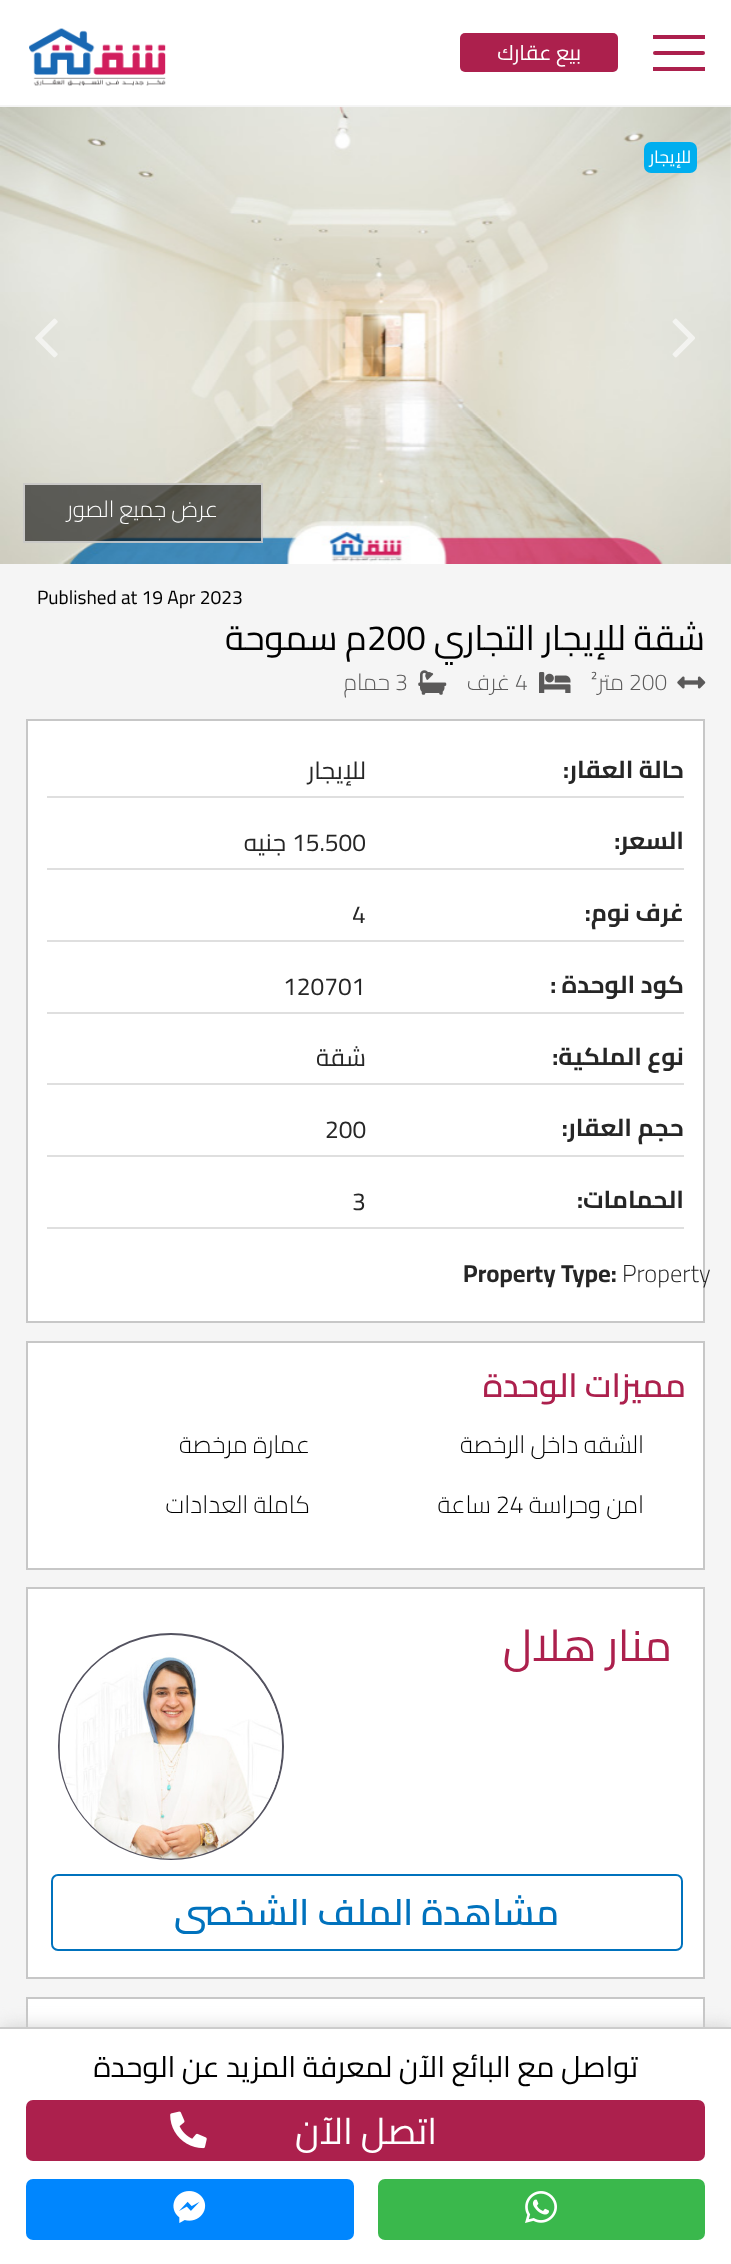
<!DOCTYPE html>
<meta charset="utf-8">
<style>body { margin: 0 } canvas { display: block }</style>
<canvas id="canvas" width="731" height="2264"></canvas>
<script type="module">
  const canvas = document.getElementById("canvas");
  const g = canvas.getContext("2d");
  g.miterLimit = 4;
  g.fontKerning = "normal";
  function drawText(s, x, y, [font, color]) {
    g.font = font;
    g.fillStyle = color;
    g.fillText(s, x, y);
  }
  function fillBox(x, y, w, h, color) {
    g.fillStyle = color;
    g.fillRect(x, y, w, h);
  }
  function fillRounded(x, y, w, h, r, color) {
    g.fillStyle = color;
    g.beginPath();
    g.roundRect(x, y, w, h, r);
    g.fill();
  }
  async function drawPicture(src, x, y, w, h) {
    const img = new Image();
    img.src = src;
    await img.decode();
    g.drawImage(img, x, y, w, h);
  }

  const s1 = ["21px Cairo", "#FFFFFF"];
  const s2 = ["17.5px Cairo", "#FFFFFF"];
  const s3 = ["300 22.75px Cairo", "#FFFFFF"];
  const s4 = ["19.25px Cairo", "#000000"];
  const s5 = ["35px Cairo", "#000000"];
  const s6 = ["300 22.75px Cairo", "#5A5959"];
  const s7 = ["bold 24.5px Cairo", "#262626"];
  const s8 = ["24.5px Cairo", "#262626"];
  const s9 = ["300 24.5px Cairo", "#262626"];
  const s10 = ["600 33.25px Cairo", "#AC204D"];
  const s11 = ["300 24.5px Cairo", "#000000"];
  const s12 = ["44px Cairo", "#AC204D"];
  const s13 = ["600 36.5px Cairo", "#0072BD"];
  const s14 = ["29.25px Cairo", "#000000"];
  const s15 = ["36.5px Cairo", "#FFFFFF"];

  fillBox(0, 0, 731, 2264, "#F5F5F5");
  fillBox(0, 0, 731, 105, "#FFFFFF");
  fillRounded(653, 51, 52, 4, 2, "#AC204D");
  fillBox(653, 35, 52, 4, "#AC204D");
  fillBox(653, 67, 52, 4, "#AC204D");
  fillRounded(460, 33, 158, 39, 5, "#AC204D");
  g.direction = "rtl";
  drawText("بيع عقارك", 581, 60, s1);
  await drawPicture("pic1.png", 29, 28, 137, 58);
  await drawPicture("pic2.png", 0, 107, 731, 457);
  fillRounded(644, 142, 53, 31, 7, "#00AEEF");
  drawText("للإيجار", 691, 163, s2);
  await drawPicture("pic3.png", 672, 318, 23, 40);
  await drawPicture("pic4.png", 35, 318, 23, 40);
  fillBox(23, 483, 240, 60, "rgba(0, 0, 0, 0.58)");
  g.strokeStyle = "rgba(251, 250, 249, 0.7)";
  g.lineWidth = 2;
  g.strokeRect(24, 484, 238, 58);
  drawText("عرض جميع الصور", 218, 517, s3);
  g.direction = "ltr";
  drawText("Published at 19 Apr 2023", 37, 604, s4);
  g.direction = "rtl";
  drawText("شقة للإيجار التجاري", 705, 650, s5);
  g.direction = "ltr";
  drawText("200", 367, 650, s5);
  g.direction = "rtl";
  drawText("م سموحة", 367, 650, s5);
  await drawPicture("pic5.png", 677, 676, 29, 13);
  g.direction = "ltr";
  drawText("200", 629, 690, s6);
  drawText("²", 591, 690, s6);
  g.direction = "rtl";
  drawText("متر", 624, 690, s6);
  await drawPicture("pic6.png", 539, 672, 32, 21);
  g.direction = "ltr";
  drawText("4", 515, 690, s6);
  g.direction = "rtl";
  drawText("غرف", 510, 690, s6);
  await drawPicture("pic7.png", 418, 670, 29, 25);
  g.direction = "ltr";
  drawText("3", 395, 690, s6);
  g.direction = "rtl";
  drawText("حمام", 390, 690, s6);
  g.fillStyle = "#FFFFFF";
  g.beginPath();
  g.rect(27, 720, 677, 602);
  g.fill();
  g.strokeStyle = "#C7C7C7";
  g.stroke();
  fillBox(47, 796, 637, 2, "#DFDFDF");
  drawText("حالة العقار:", 684, 778, s7);
  drawText("للإيجار", 366, 779, s8);
  fillBox(47, 868, 637, 2, "#DFDFDF");
  drawText("السعر:", 684, 849, s7);
  g.direction = "ltr";
  drawText("15.500", 292, 851, s8);
  g.direction = "rtl";
  drawText("جنيه", 286, 851, s8);
  fillBox(47, 940, 637, 2, "#DFDFDF");
  drawText("غرف نوم:", 684, 921, s7);
  g.direction = "ltr";
  drawText("4", 352, 923, s8);
  fillBox(47, 1012, 637, 2, "#DFDFDF");
  g.direction = "rtl";
  drawText("كود الوحدة :", 684, 993, s7);
  g.direction = "ltr";
  drawText("120701", 283, 995, s8);
  fillBox(47, 1083, 637, 2, "#DFDFDF");
  g.direction = "rtl";
  drawText("نوع الملكية:", 684, 1065, s7);
  drawText("شقة", 366, 1066, s8);
  fillBox(47, 1155, 637, 2, "#DFDFDF");
  drawText("حجم العقار:", 684, 1136, s7);
  g.direction = "ltr";
  drawText("200", 325, 1138, s8);
  fillBox(47, 1227, 637, 2, "#DFDFDF");
  g.direction = "rtl";
  drawText("الحمامات:", 684, 1208, s7);
  g.direction = "ltr";
  drawText("3", 352, 1210, s8);
  drawText("Property", 622, 1282, s9);
  drawText("Property Type:", 463, 1282, s7);
  g.fillStyle = "#FFFFFF";
  g.beginPath();
  g.rect(27, 1342, 677, 227);
  g.fill();
  g.stroke();
  g.direction = "rtl";
  drawText("مميزات الوحدة", 686, 1397, s10);
  drawText("الشقه داخل الرخصة", 644, 1453, s11);
  drawText("عمارة مرخصة", 310, 1453, s11);
  drawText("امن وحراسة", 644, 1513, s11);
  g.direction = "ltr";
  drawText("24", 496, 1513, s11);
  g.direction = "rtl";
  drawText("ساعة", 491, 1513, s11);
  drawText("كاملة العدادات", 310, 1513, s11);
  g.fillStyle = "#FFFFFF";
  g.beginPath();
  g.rect(27, 1588, 677, 390);
  g.fill();
  g.stroke();
  drawText("منار هلال", 672, 1661, s12);
  g.beginPath();
  g.roundRect(59, 1634, 224, 225, 112);
  g.strokeStyle = "#545360";
  g.stroke();
  await drawPicture("pic8.png", 59, 1652, 223, 207);
  g.beginPath();
  g.roundRect(52, 1875, 630, 75, 6);
  g.strokeStyle = "#0072BD";
  g.stroke();
  drawText("مشاهدة الملف الشخصى", 559, 1925, s13);
  fillBox(28, 1999, 675, 28, "#FFFFFF");
  g.strokeStyle = "#C7C7C7";
  g.strokeRect(27, 1998, 677, 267);
  g.fillStyle = "#CCCCCC";
  g.filter = "blur(9px)";
  g.beginPath();
  g.rect(2, 2028, 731, 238);
  g.fill();
  g.filter = "none";
  fillBox(0, 2029, 731, 235, "#FFFFFF");
  fillBox(0, 2027, 731, 2, "#CCCCCC");
  drawText("تواصل مع البائع الآن لمعرفة المزيد عن الوحدة", 638, 2077, s14);
  fillRounded(26, 2100, 679, 61, 7, "#AC204D");
  drawText("اتصل الآن", 437, 2144, s15);
  await drawPicture("pic9.png", 170, 2111, 37, 38);
  fillRounded(378, 2179, 327, 61, 7, "#3AB84C");
  await drawPicture("pic10.png", 525, 2191, 32, 32);
  fillRounded(26, 2179, 328, 61, 7, "#0086FE");
  await drawPicture("pic11.png", 173, 2191, 33, 32);
</script>
